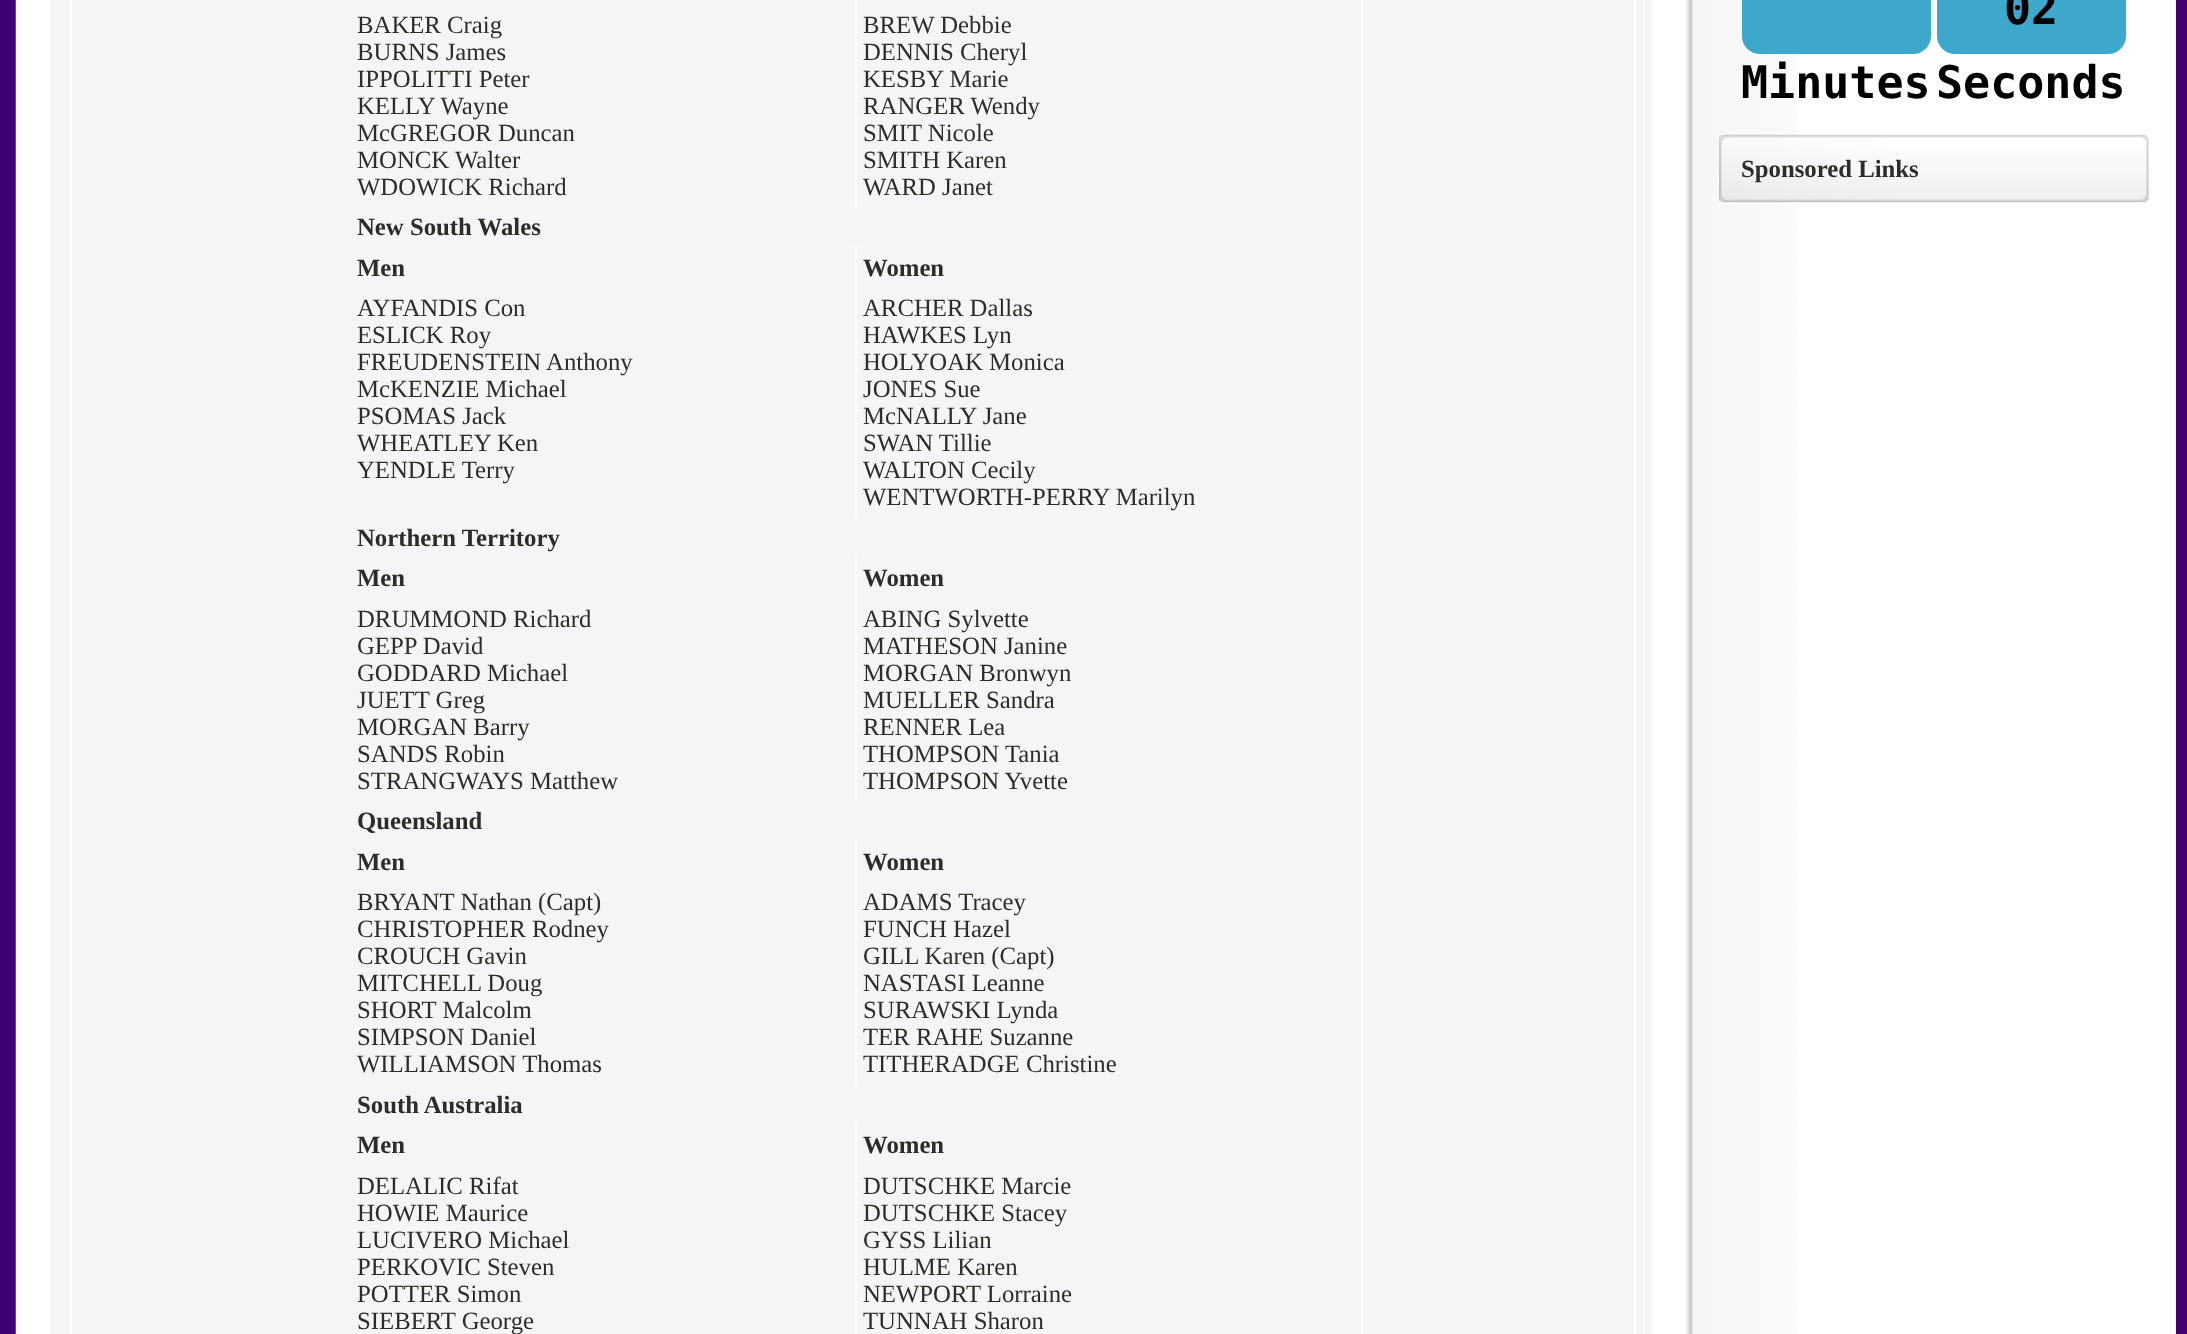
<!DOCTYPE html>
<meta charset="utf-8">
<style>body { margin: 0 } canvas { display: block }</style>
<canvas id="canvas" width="2187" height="1334"></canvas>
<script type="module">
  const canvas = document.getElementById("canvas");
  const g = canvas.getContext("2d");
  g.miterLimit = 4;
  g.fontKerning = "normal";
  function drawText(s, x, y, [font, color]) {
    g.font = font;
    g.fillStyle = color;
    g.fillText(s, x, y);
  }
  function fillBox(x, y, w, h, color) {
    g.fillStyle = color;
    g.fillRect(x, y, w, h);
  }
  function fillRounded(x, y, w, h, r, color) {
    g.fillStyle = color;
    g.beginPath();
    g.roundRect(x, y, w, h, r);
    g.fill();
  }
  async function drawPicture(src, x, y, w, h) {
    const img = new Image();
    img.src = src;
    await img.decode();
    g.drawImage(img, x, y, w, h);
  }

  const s1 = ["24.75px Liberation Serif", "#2C2C29"];
  const s2 = ["bold 24.75px Liberation Serif", "#2C2C29"];
  const s3 = ["bold 45px DejaVu Sans Mono", "#000000"];

  fillBox(0, 0, 2187, 1334, "#3F0072");
  fillBox(1798, 0, 378, 1334, "#FFFFFF");
  await drawPicture("pic1.png", 15, 0, 1783, 1334);
  fillBox(50, 0, 1602, 1334, "#F5F5F5");
  fillBox(70, 0, 2, 1334, "#FFFFFF");
  fillBox(1643, 0, 2, 1334, "#FFFFFF");
  fillBox(1634, 0, 2, 1334, "#FFFFFF");
  fillBox(855, 0, 2, 207, "#FFFFFF");
  drawText("BAKER Craig", 357, 33, s1);
  drawText("BURNS James", 357, 60, s1);
  drawText("IPPOLITTI Peter", 357, 87, s1);
  drawText("KELLY Wayne", 357, 114, s1);
  drawText("McGREGOR Duncan", 357, 141, s1);
  drawText("MONCK Walter", 357, 168, s1);
  drawText("WDOWICK Richard", 357, 195, s1);
  drawText("BREW Debbie", 863, 33, s1);
  drawText("DENNIS Cheryl", 863, 60, s1);
  drawText("KESBY Marie", 863, 87, s1);
  drawText("RANGER Wendy", 863, 114, s1);
  drawText("SMIT Nicole", 863, 141, s1);
  drawText("SMITH Karen", 863, 168, s1);
  drawText("WARD Janet", 863, 195, s1);
  drawText("New South Wales", 357, 235, s2);
  drawText("Men", 357, 276, s2);
  drawText("Women", 863, 276, s2);
  fillBox(855, 245, 2, 273, "#FFFFFF");
  drawText("AYFANDIS Con", 357, 316, s1);
  drawText("ESLICK Roy", 357, 343, s1);
  drawText("FREUDENSTEIN Anthony", 357, 370, s1);
  drawText("McKENZIE Michael", 357, 397, s1);
  drawText("PSOMAS Jack", 357, 424, s1);
  drawText("WHEATLEY Ken", 357, 451, s1);
  drawText("YENDLE Terry", 357, 478, s1);
  drawText("ARCHER Dallas", 863, 316, s1);
  drawText("HAWKES Lyn", 863, 343, s1);
  drawText("HOLYOAK Monica", 863, 370, s1);
  drawText("JONES Sue", 863, 397, s1);
  drawText("McNALLY Jane", 863, 424, s1);
  drawText("SWAN Tillie", 863, 451, s1);
  drawText("WALTON Cecily", 863, 478, s1);
  drawText("WENTWORTH-PERRY Marilyn", 863, 505, s1);
  drawText("Northern Territory", 357, 546, s2);
  drawText("Men", 357, 586, s2);
  drawText("Women", 863, 586, s2);
  fillBox(855, 556, 2, 245, "#FFFFFF");
  drawText("DRUMMOND Richard", 357, 627, s1);
  drawText("GEPP David", 357, 654, s1);
  drawText("GODDARD Michael", 357, 681, s1);
  drawText("JUETT Greg", 357, 708, s1);
  drawText("MORGAN Barry", 357, 735, s1);
  drawText("SANDS Robin", 357, 762, s1);
  drawText("STRANGWAYS Matthew", 357, 789, s1);
  drawText("ABING Sylvette", 863, 627, s1);
  drawText("MATHESON Janine", 863, 654, s1);
  drawText("MORGAN Bronwyn", 863, 681, s1);
  drawText("MUELLER Sandra", 863, 708, s1);
  drawText("RENNER Lea", 863, 735, s1);
  drawText("THOMPSON Tania", 863, 762, s1);
  drawText("THOMPSON Yvette", 863, 789, s1);
  drawText("Queensland", 357, 829, s2);
  drawText("Men", 357, 870, s2);
  drawText("Women", 863, 870, s2);
  fillBox(855, 839, 2, 246, "#FFFFFF");
  drawText("BRYANT Nathan (Capt)", 357, 910, s1);
  drawText("CHRISTOPHER Rodney", 357, 937, s1);
  drawText("CROUCH Gavin", 357, 964, s1);
  drawText("MITCHELL Doug", 357, 991, s1);
  drawText("SHORT Malcolm", 357, 1018, s1);
  drawText("SIMPSON Daniel", 357, 1045, s1);
  drawText("WILLIAMSON Thomas", 357, 1072, s1);
  drawText("ADAMS Tracey", 863, 910, s1);
  drawText("FUNCH Hazel", 863, 937, s1);
  drawText("GILL Karen (Capt)", 863, 964, s1);
  drawText("NASTASI Leanne", 863, 991, s1);
  drawText("SURAWSKI Lynda", 863, 1018, s1);
  drawText("TER RAHE Suzanne", 863, 1045, s1);
  drawText("TITHERADGE Christine", 863, 1072, s1);
  drawText("South Australia", 357, 1113, s2);
  drawText("Men", 357, 1153, s2);
  drawText("Women", 863, 1153, s2);
  fillBox(855, 1123, 2, 211, "#FFFFFF");
  drawText("DELALIC Rifat", 357, 1194, s1);
  drawText("HOWIE Maurice", 357, 1221, s1);
  drawText("LUCIVERO Michael", 357, 1248, s1);
  drawText("PERKOVIC Steven", 357, 1275, s1);
  drawText("POTTER Simon", 357, 1302, s1);
  drawText("SIEBERT George", 357, 1329, s1);
  fillBox(1361, 0, 2, 1334, "#FFFFFF");
  drawText("DUTSCHKE Marcie", 863, 1194, s1);
  drawText("DUTSCHKE Stacey", 863, 1221, s1);
  drawText("GYSS Lilian", 863, 1248, s1);
  drawText("HULME Karen", 863, 1275, s1);
  drawText("NEWPORT Lorraine", 863, 1302, s1);
  drawText("TUNNAH Sharon", 863, 1329, s1);
  fillRounded(1742, -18, 189, 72, 18, "#3DA8CC");
  drawText("Minutes", 1741, 98, s3);
  fillRounded(1937, -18, 189, 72, 18, "#3DA8CC");
  drawText("02", 2004, 24, s3);
  drawText("Seconds", 1936, 98, s3);
  fillBox(1719, 135, 79, 70, "#FFFFFF");
  await drawPicture("pic2.png", 1719, 134, 430, 69);
  drawText("Sponsored Links", 1741, 177, s2);
</script>
